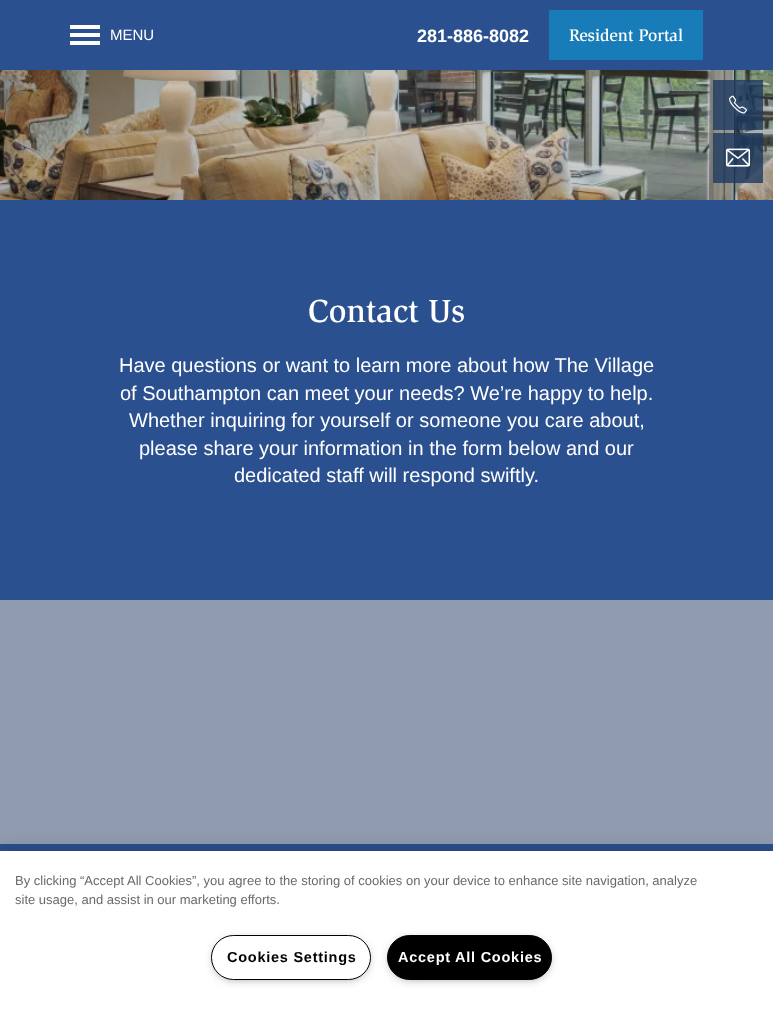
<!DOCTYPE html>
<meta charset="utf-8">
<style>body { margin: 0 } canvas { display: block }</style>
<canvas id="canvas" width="773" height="1009"></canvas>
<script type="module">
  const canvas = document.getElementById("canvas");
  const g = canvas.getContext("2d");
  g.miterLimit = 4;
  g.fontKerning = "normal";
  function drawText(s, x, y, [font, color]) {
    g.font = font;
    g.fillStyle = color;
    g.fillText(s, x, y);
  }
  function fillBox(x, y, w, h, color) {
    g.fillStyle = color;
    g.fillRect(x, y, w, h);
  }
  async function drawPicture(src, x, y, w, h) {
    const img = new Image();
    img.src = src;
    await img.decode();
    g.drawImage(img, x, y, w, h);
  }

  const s1 = ["15px Liberation Sans", "#FFFFFF"];
  const s2 = ["bold 18px Liberation Sans", "#FFFFFF"];
  const s3 = ["500 17.25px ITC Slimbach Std", "#FFFFFF"];
  const s4 = ["500 33px ITC Slimbach Std", "#FFFFFF"];
  const s5 = ["20px Liberation Sans", "#FFFFFF"];
  const s6 = ["13px Liberation Sans", "#696969"];
  const s7 = ["bold 14.5px Liberation Sans", "#000000"];
  const s8 = ["bold 14.5px Liberation Sans", "#FFFFFF"];

  fillBox(0, 0, 773, 1009, "#2B5090");
  fillBox(70, 25, 30, 4, "#FFFFFF");
  fillBox(70, 33, 30, 4, "#FFFFFF");
  fillBox(70, 41, 30, 4, "#FFFFFF");
  drawText("MENU", 110, 40, s1);
  drawText("281-886-8082", 417, 42, s2);
  fillBox(549, 10, 154, 50, "#187CB9");
  drawText("Resident Portal", 569, 41, s3);
  await drawPicture("pic3.png", 0, 70, 773, 130);
  fillBox(713, 80, 50, 50, "rgba(30, 57, 95, 0.8)");
  await drawPicture("pic1.png", 729, 95, 18, 19);
  fillBox(713, 133, 50, 50, "rgba(30, 57, 95, 0.8)");
  await drawPicture("pic2.png", 725, 148, 26, 19);
  drawText("Contact Us", 308, 322, s4);
  drawText("Have questions or want to learn more about how The Village", 119, 372, s5);
  drawText("of Southampton can meet your needs? We’re happy to help.", 120, 400, s5);
  drawText("Whether inquiring for yourself or someone you care about,", 129, 427, s5);
  drawText("please share your information in the form below and our", 139, 455, s5);
  drawText("dedicated staff will respond swiftly.", 234, 482, s5);
  fillBox(0, 600, 773, 244, "#8F9CAF");
  g.fillStyle = "rgba(0, 0, 0, 0.2)";
  g.filter = "blur(9px)";
  g.beginPath();
  g.rect(0, 851, 773, 158);
  g.fill();
  g.filter = "none";
  fillBox(0, 851, 773, 158, "#FFFFFF");
  drawText("By clicking “Accept All Cookies”, you agree to the storing of cookies on your device to enhance site navigation, analyze", 15, 885, s6);
  drawText("site usage, and assist in our marketing efforts.", 15, 904, s6);
  g.fillStyle = "#999999";
  g.filter = "blur(5px)";
  g.beginPath();
  g.roundRect(214, 940, 154, 39, 19.5);
  g.fill();
  g.filter = "none";
  g.fillStyle = "#FFFFFF";
  g.beginPath();
  g.roundRect(211.5, 935.5, 159, 44, 22);
  g.fill();
  g.strokeStyle = "#000000";
  g.stroke();
  g.letterSpacing = "0.75px";
  drawText("Cookies Settings", 227, 962, s7);
  g.fillStyle = "#999999";
  g.filter = "blur(5px)";
  g.beginPath();
  g.roundRect(390, 940, 159, 39, 19.5);
  g.fill();
  g.filter = "none";
  g.fillStyle = "#000000";
  g.beginPath();
  g.roundRect(387.5, 935.5, 164, 44, 22);
  g.fill();
  g.stroke();
  drawText("Accept All Cookies", 398, 962, s8);
</script>
